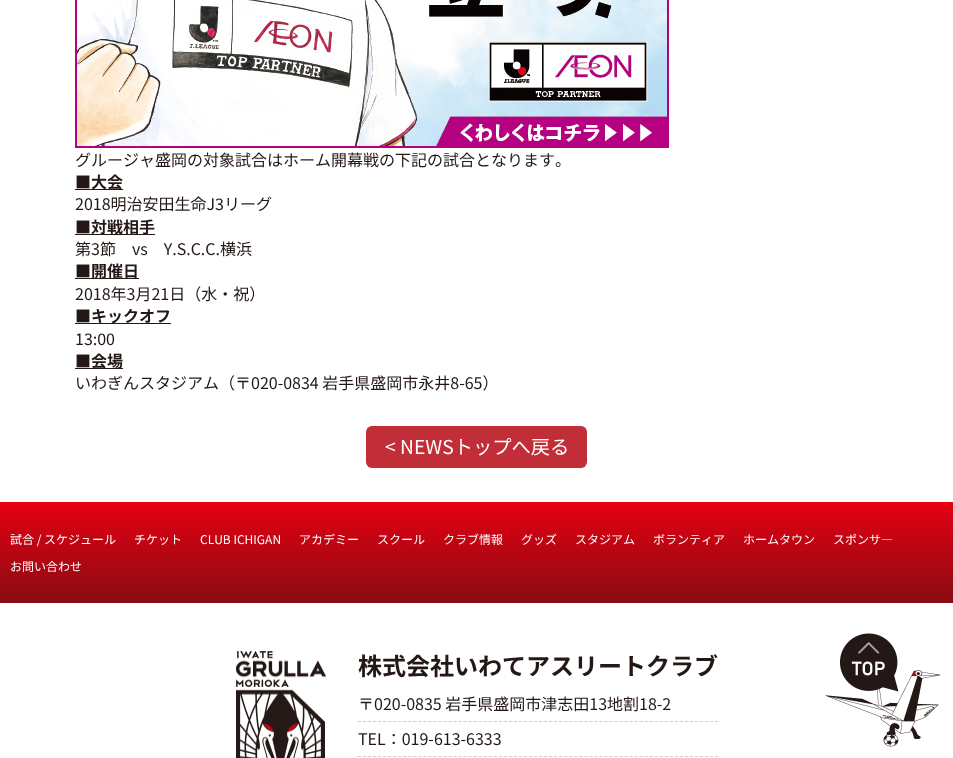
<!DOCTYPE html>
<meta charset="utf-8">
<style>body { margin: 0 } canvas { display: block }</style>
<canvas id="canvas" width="953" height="758"></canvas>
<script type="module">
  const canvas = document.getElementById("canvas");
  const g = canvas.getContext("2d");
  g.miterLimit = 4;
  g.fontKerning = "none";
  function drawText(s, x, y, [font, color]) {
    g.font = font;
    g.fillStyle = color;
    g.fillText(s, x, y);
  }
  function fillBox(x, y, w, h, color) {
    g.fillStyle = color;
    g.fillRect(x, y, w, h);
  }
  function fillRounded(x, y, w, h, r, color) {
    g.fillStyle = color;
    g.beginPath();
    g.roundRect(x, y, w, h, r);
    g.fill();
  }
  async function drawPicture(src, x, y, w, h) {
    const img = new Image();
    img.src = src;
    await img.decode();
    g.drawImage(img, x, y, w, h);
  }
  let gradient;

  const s1 = ["16px Noto Sans JP", "#231815"];
  const s2 = ["bold 16px Noto Sans JP", "#231815"];
  const s3 = ["19.25px Noto Sans JP", "#FFFFFF"];
  const s4 = ["12px Noto Sans JP", "#FFFFFF"];
  const s5 = ["bold 24px Noto Sans JP", "#231815"];

  fillBox(0, 0, 953, 758, "#FFFFFF");
  await drawPicture("pic1.png", 75, 0, 594, 148);
  drawText("グルージャ盛岡の対象試合はホーム開幕戦の下記の試合となります。", 75, 166, s1);
  fillBox(75, 189, 48, 1, "#231815");
  drawText("■大会", 75, 188, s2);
  drawText("2018明治安田生命J3リーグ", 75, 210, s1);
  fillBox(75, 234, 80, 1, "#231815");
  drawText("■対戦相手", 75, 233, s2);
  drawText("第3節　vs　Y.S.C.C.横浜", 75, 255, s1);
  fillBox(75, 278, 64, 1, "#231815");
  drawText("■開催日", 75, 277, s2);
  drawText("2018年3月21日（水・祝）", 75, 300, s1);
  fillBox(75, 323, 96, 1, "#231815");
  drawText("■キックオフ", 75, 322, s2);
  drawText("13:00", 75, 345, s1);
  fillBox(75, 368, 48, 1, "#231815");
  drawText("■会場", 75, 367, s2);
  drawText("いわぎんスタジアム（〒020-0834 岩手県盛岡市永井8-65）", 75, 389, s1);
  fillRounded(366, 426, 221, 42, 6, "#C22E38");
  drawText("< NEWSトップへ戻る", 385, 454, s3);
  gradient = g.createLinearGradient(477, 502, 477, 603);
  gradient.addColorStop(0, "#E50012");
  gradient.addColorStop(1, "#890B13");
  g.fillStyle = gradient;
  g.fillRect(0, 502, 953, 101);
  drawText("試合 / スケジュール", 10, 544, s4);
  drawText("チケット", 134, 544, s4);
  drawText("CLUB ICHIGAN", 200, 544, s4);
  drawText("アカデミー", 299, 544, s4);
  drawText("スクール", 377, 544, s4);
  drawText("クラブ情報", 443, 544, s4);
  drawText("グッズ", 521, 544, s4);
  drawText("スタジアム", 575, 544, s4);
  drawText("ボランティア", 653, 544, s4);
  drawText("ホームタウン", 743, 544, s4);
  drawText("スポンサ―", 833, 544, s4);
  drawText("お問い合わせ", 10, 571, s4);
  await drawPicture("pic2.png", 236, 651, 90, 107);
  drawText("株式会社いわてアスリートクラブ", 358, 675, s5);
  g.beginPath();
  g.moveTo(358, 721.5);
  g.lineTo(718, 721.5);
  g.strokeStyle = "#CCCCCC";
  g.setLineDash([3, 2.03]);
  g.stroke();
  drawText("〒020-0835 岩手県盛岡市津志田13地割18-2", 358, 710, s1);
  g.beginPath();
  g.moveTo(358, 756.5);
  g.lineTo(718, 756.5);
  g.stroke();
  drawText("TEL：019-613-6333", 358, 745, s1);
  await drawPicture("pic3.png", 825, 633, 116, 114);
</script>
